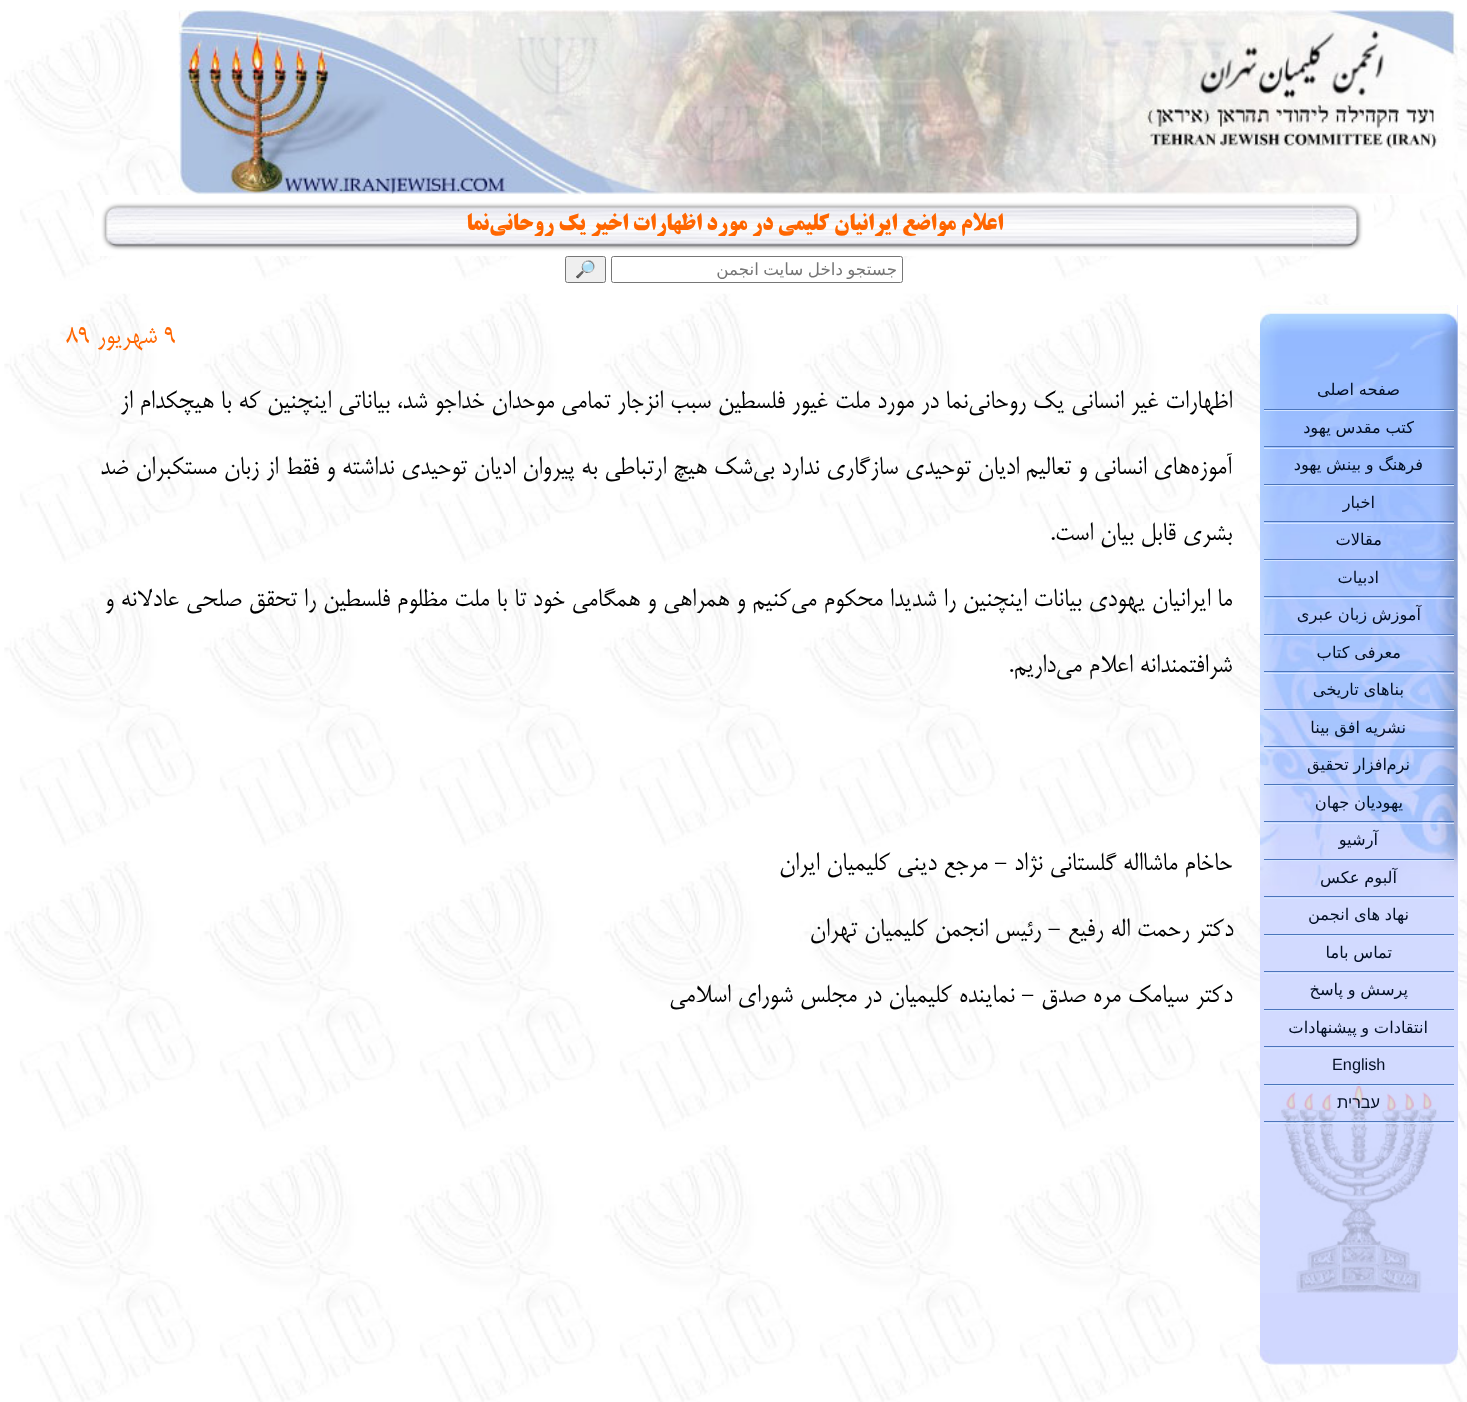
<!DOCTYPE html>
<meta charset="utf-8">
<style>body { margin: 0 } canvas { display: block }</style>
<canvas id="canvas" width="1467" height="1402"></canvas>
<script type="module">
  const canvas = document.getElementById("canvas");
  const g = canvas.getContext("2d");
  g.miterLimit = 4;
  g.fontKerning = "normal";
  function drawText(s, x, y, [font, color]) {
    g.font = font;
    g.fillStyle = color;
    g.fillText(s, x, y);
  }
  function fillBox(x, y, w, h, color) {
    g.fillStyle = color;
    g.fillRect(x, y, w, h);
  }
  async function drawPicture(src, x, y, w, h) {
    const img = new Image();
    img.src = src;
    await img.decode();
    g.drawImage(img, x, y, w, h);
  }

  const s1 = ["bold 23.3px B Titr", "#FF6600"];
  const s2 = ["16.75px DejaVu Sans", "#757575"];
  const s3 = ["16.75px Noto Color Emoji", "#000000"];
  const s4 = ["16.25px DejaVu Sans", "#000E24"];
  const s5 = ["16.25px Liberation Sans", "#000E24"];
  const s6 = ["30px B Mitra", "#FF6600"];
  const s7 = ["30px B Mitra", "#000000"];

  fillBox(0, 0, 1467, 1402, "#FFFFFF");
  await drawPicture("pic1.png", 4, 10, 1463, 1392);
  await drawPicture("pic2.png", 178, 10, 1280, 185);
  await drawPicture("pic3.png", 1312, 195, 62, 56);
  await drawPicture("pic4.png", 155, 195, 1158, 61);
  g.direction = "rtl";
  drawText("اعلام مواضع ایرانیان کلیمی در مورد اظهارات اخیر یک روحانی‌نما", 1003, 230, s1);
  await drawPicture("pic5.png", 94, 195, 61, 61);
  g.fillStyle = "#FFFFFF";
  g.beginPath();
  g.roundRect(611.5, 256.5, 291, 26, 2);
  g.fill();
  g.strokeStyle = "#767676";
  g.stroke();
  g.wordSpacing = "-1px";
  drawText("جستجو داخل سایت انجمن", 897, 275, s2);
  g.fillStyle = "#EFEFEF";
  g.beginPath();
  g.roundRect(565.5, 256.5, 40, 26, 2);
  g.fill();
  g.stroke();
  g.wordSpacing = "0px";
  g.direction = "ltr";
  drawText("🔎", 575, 275, s3);
  fillBox(1260, 305, 198, 1045, "#D0D7FF");
  await drawPicture("pic6.png", 1260, 305, 198, 988);
  fillBox(1264, 410, 190, 1, "#D5E5FF");
  fillBox(1264, 409, 190, 1, "#4A75BC");
  g.wordSpacing = "-0.5px";
  g.direction = "rtl";
  drawText("صفحه اصلی", 1400, 395, s4);
  fillBox(1264, 448, 190, 1, "#D5E5FF");
  fillBox(1264, 446, 190, 1, "#4A75BC");
  drawText("کتب مقدس یهود", 1414, 433, s4);
  fillBox(1264, 485, 190, 1, "#D5E5FF");
  fillBox(1264, 484, 190, 1, "#4A75BC");
  drawText("فرهنگ و بینش یهود", 1423, 470, s4);
  fillBox(1264, 523, 190, 1, "#D5E5FF");
  fillBox(1264, 521, 190, 1, "#4A75BC");
  g.wordSpacing = "0px";
  drawText("اخبار", 1375, 508, s4);
  fillBox(1264, 560, 190, 1, "#D5E5FF");
  fillBox(1264, 559, 190, 1, "#4A75BC");
  drawText("مقالات", 1382, 545, s4);
  fillBox(1264, 598, 190, 1, "#D5E5FF");
  fillBox(1264, 596, 190, 1, "#4A75BC");
  drawText("ادبیات", 1379, 583, s4);
  fillBox(1264, 635, 190, 1, "#D5E5FF");
  fillBox(1264, 634, 190, 1, "#4A75BC");
  g.wordSpacing = "-0.5px";
  drawText("آموزش زبان عبری", 1421, 620, s4);
  fillBox(1264, 673, 190, 1, "#D5E5FF");
  fillBox(1264, 671, 190, 1, "#4A75BC");
  drawText("معرفی کتاب", 1401, 658, s4);
  fillBox(1264, 710, 190, 1, "#D5E5FF");
  fillBox(1264, 709, 190, 1, "#4A75BC");
  drawText("بناهای تاریخی", 1404, 695, s4);
  fillBox(1264, 748, 190, 1, "#D5E5FF");
  fillBox(1264, 746, 190, 1, "#4A75BC");
  drawText("نشریه افق بینا", 1406, 733, s4);
  fillBox(1264, 785, 190, 1, "#D5E5FF");
  fillBox(1264, 784, 190, 1, "#4A75BC");
  g.wordSpacing = "0px";
  drawText("نرم", 1410, 770, s4);
  g.wordSpacing = "-0.5px";
  drawText("افزار تحقیق", 1387, 770, s4);
  fillBox(1264, 823, 190, 1, "#D5E5FF");
  fillBox(1264, 821, 190, 1, "#4A75BC");
  drawText("یهودیان جهان", 1403, 808, s4);
  fillBox(1264, 860, 190, 1, "#D5E5FF");
  fillBox(1264, 859, 190, 1, "#4A75BC");
  g.wordSpacing = "0px";
  drawText("آرشیو", 1378, 845, s4);
  fillBox(1264, 898, 190, 1, "#D5E5FF");
  fillBox(1264, 896, 190, 1, "#4A75BC");
  g.wordSpacing = "-0.5px";
  drawText("آلبوم عکس", 1397, 883, s4);
  fillBox(1264, 935, 190, 1, "#D5E5FF");
  fillBox(1264, 934, 190, 1, "#4A75BC");
  drawText("نهاد های انجمن", 1409, 920, s4);
  fillBox(1264, 973, 190, 1, "#D5E5FF");
  fillBox(1264, 971, 190, 1, "#4A75BC");
  drawText("تماس باما", 1392, 958, s4);
  fillBox(1264, 1010, 190, 1, "#D5E5FF");
  fillBox(1264, 1009, 190, 1, "#4A75BC");
  drawText("پرسش و پاسخ", 1408, 995, s4);
  fillBox(1264, 1048, 190, 1, "#D5E5FF");
  fillBox(1264, 1046, 190, 1, "#4A75BC");
  drawText("انتقادات و پیشنهادات", 1428, 1033, s4);
  fillBox(1264, 1085, 190, 1, "#D5E5FF");
  fillBox(1264, 1084, 190, 1, "#4A75BC");
  g.wordSpacing = "0px";
  g.direction = "ltr";
  drawText("English", 1332, 1070, s5);
  fillBox(1264, 1123, 190, 1, "#D5E5FF");
  fillBox(1264, 1121, 190, 1, "#4A75BC");
  g.direction = "rtl";
  drawText("עברית", 1380, 1108, s5);
  await drawPicture("pic7.png", 1260, 1350, 198, 15);
  g.direction = "ltr";
  drawText("9", 164, 343, s6);
  g.direction = "rtl";
  drawText("شهریور", 157, 343, s6);
  g.direction = "ltr";
  drawText("89", 66, 343, s6);
  g.direction = "rtl";
  drawText("اظهارات غیر انسانی یک روحانی‌نما در مورد ملت غیور فلسطین سبب انزجار تمامی", 1232, 408, s7);
  drawText("موحدان خداجو شد، بیاناتی اینچنین که با هیچکدام از", 554, 408, s7);
  drawText("آموزه‌های انسانی و تعالیم", 1232, 474, s7);
  drawText("ادیان توحیدی سازگاری ندارد بی‌شک هیچ ارتباطی به پیروان ادیان توحیدی نداشته و فقط", 1019, 474, s7);
  drawText("از زبان مستکبران ضد", 278, 474, s7);
  drawText("بشری قابل بیان است.", 1232, 540, s7);
  drawText("ما ایرانیان یهودی بیانات اینچنین را شدیدا محکوم می‌کنیم و همراهی و همگامی خود تا", 1232, 606, s7);
  drawText("با ملت مظلوم فلسطین را تحقق صلحی عادلانه و", 507, 606, s7);
  drawText("شرافتمندانه اعلام می‌داریم.", 1232, 672, s7);
  drawText("حاخام ماشااله گلستانی نژاد - مرجع دینی کلیمیان ایران", 1232, 870, s7);
  drawText("دکتر رحمت اله رفیع - رئیس انجمن کلیمیان تهران", 1233, 936, s7);
  drawText("دکتر سیامک مره صدق - نماینده کلیمیان در مجلس شورای اسلامی", 1232, 1002, s7);
</script>
